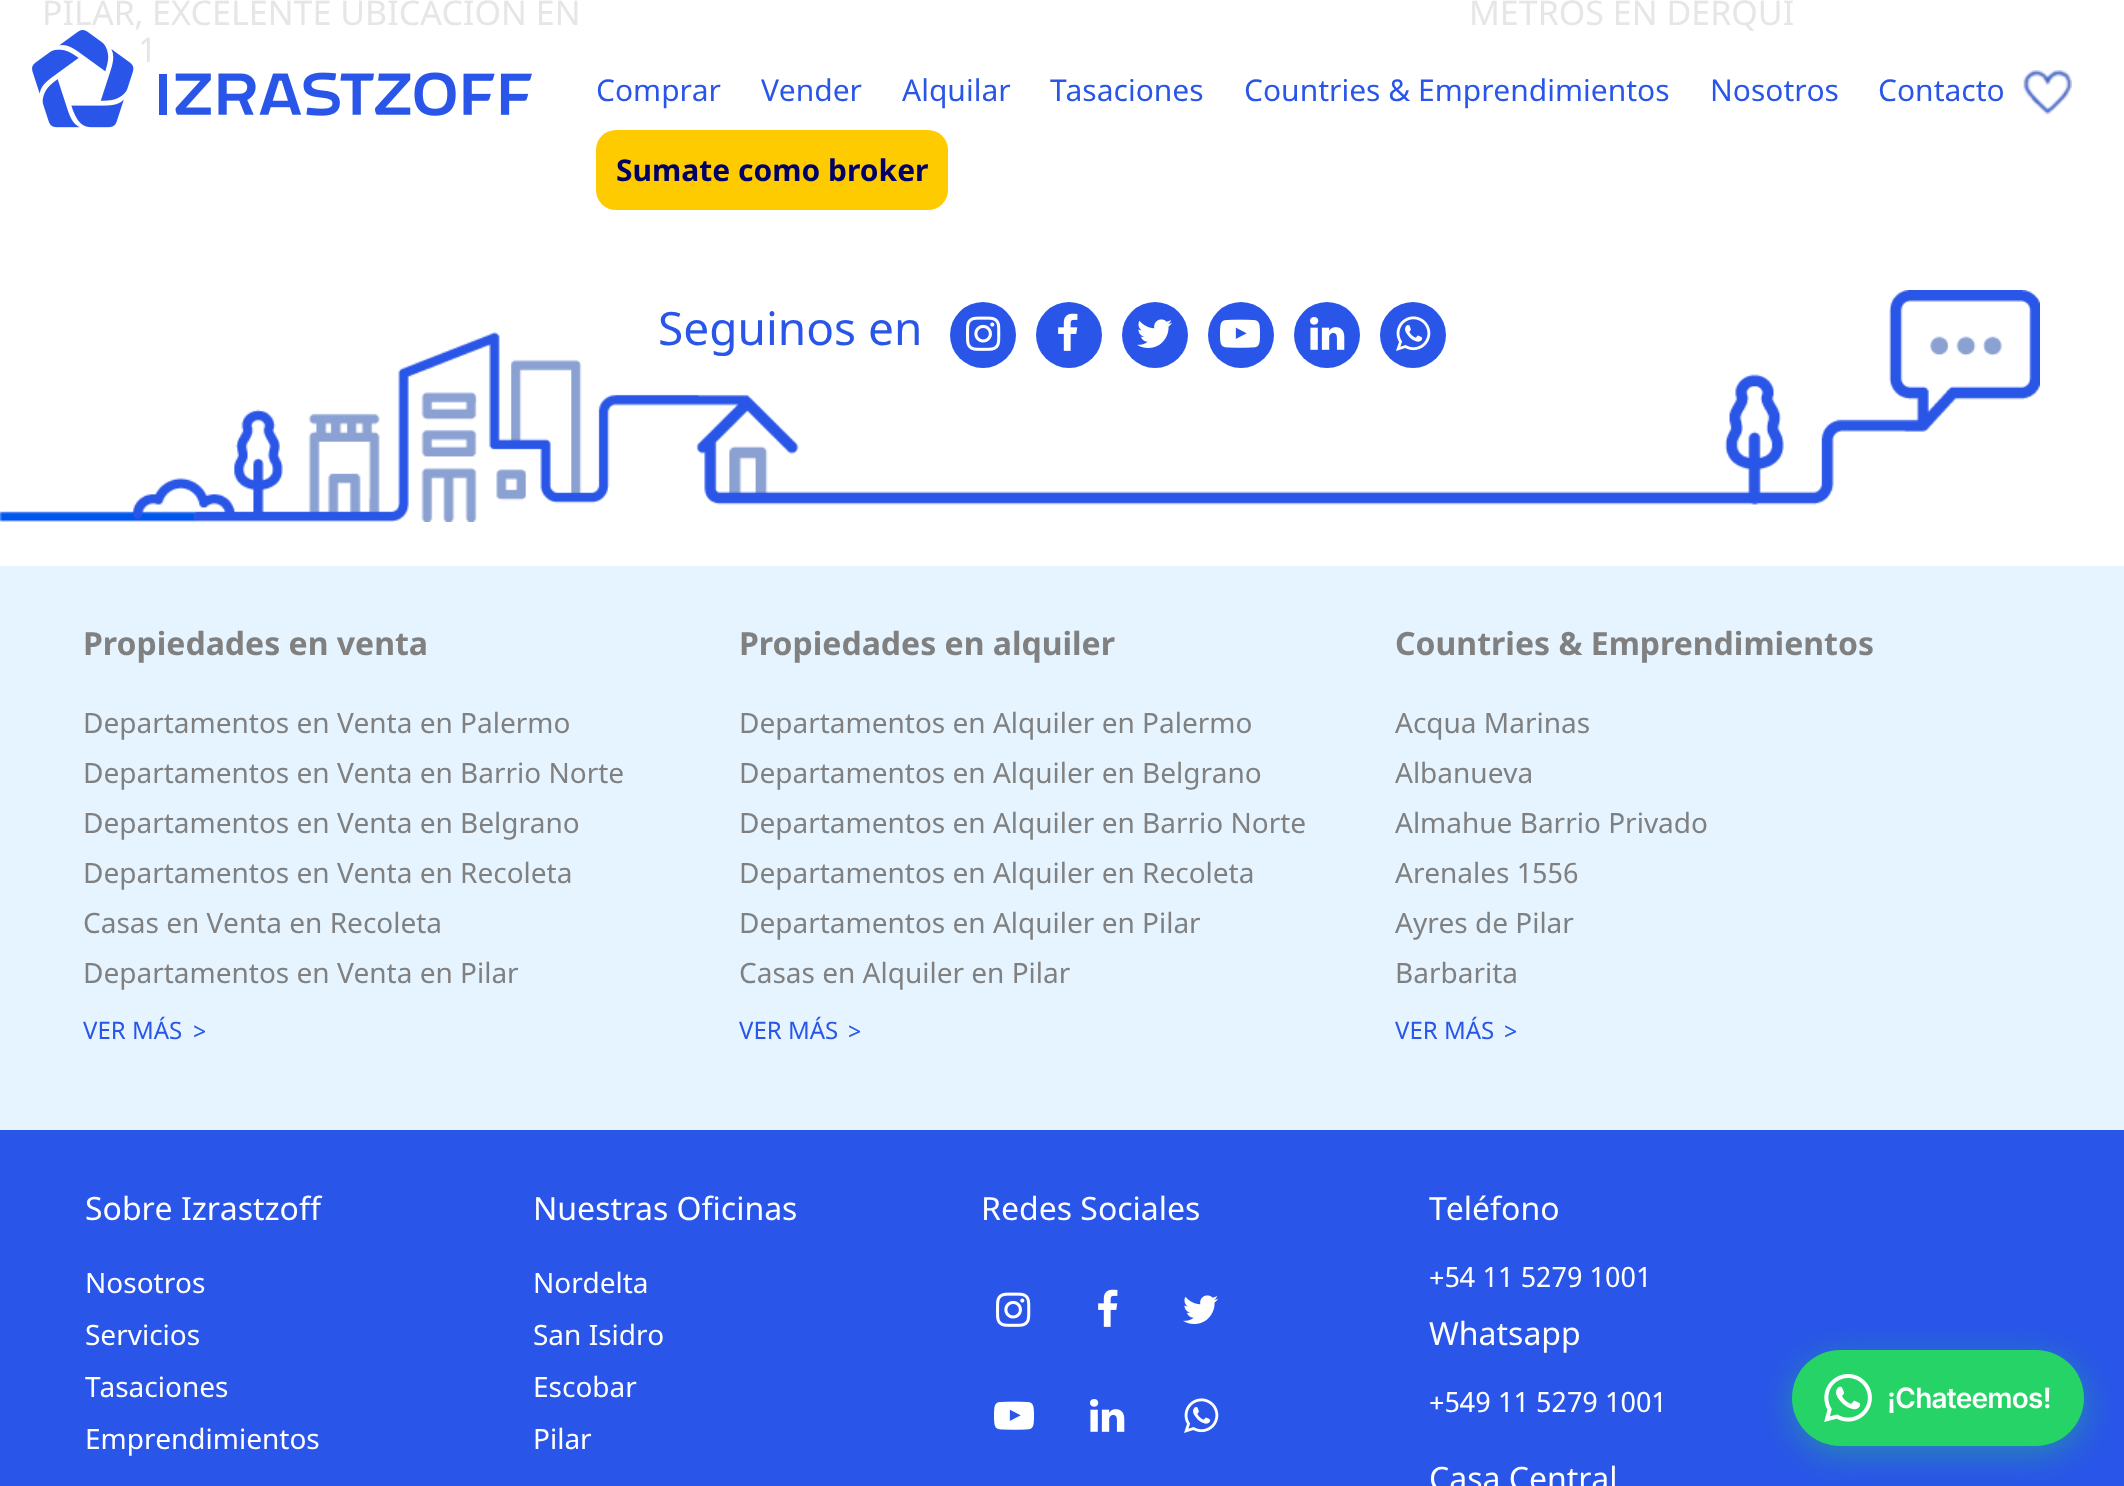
<!DOCTYPE html>
<meta charset="utf-8">
<style>body { margin: 0 } canvas { display: block }</style>
<canvas id="canvas" width="2124" height="1486"></canvas>
<script type="module">
  const canvas = document.getElementById("canvas");
  const g = canvas.getContext("2d");
  g.miterLimit = 4;
  g.fontKerning = "normal";
  function drawText(s, x, y, [font, color]) {
    g.font = font;
    g.fillStyle = color;
    g.fillText(s, x, y);
  }
  function fillBox(x, y, w, h, color) {
    g.fillStyle = color;
    g.fillRect(x, y, w, h);
  }
  function fillRounded(x, y, w, h, r, color) {
    g.fillStyle = color;
    g.beginPath();
    g.roundRect(x, y, w, h, r);
    g.fill();
  }
  async function drawPicture(src, x, y, w, h) {
    const img = new Image();
    img.src = src;
    await img.decode();
    g.drawImage(img, x, y, w, h);
  }

  const s1 = ["34px Noto Sans", "#E6E6E6"];
  const s2 = ["30px Noto Sans", "#2956E8"];
  const s3 = ["bold 30px Noto Sans", "#000066"];
  const s4 = ["46px Noto Sans", "#2956E8"];
  const s5 = ["bold 32px Noto Sans", "#808080"];
  const s6 = ["28px Noto Sans", "#808080"];
  const s7 = ["24px Noto Sans", "#2956E8"];
  const s8 = ["32px Noto Sans", "#FFFFFF"];
  const s9 = ["28px Noto Sans", "#FFFFFF"];
  const s10 = ["600 28px Inter", "#FFFFFF"];

  fillBox(0, 0, 2124, 1486, "#FFFFFF");
  drawText("PILAR, EXCELENTE UBICACIÓN EN", 42, 25, s1);
  drawText("1", 138, 62, s1);
  drawText("METROS EN DERQUI", 1469, 25, s1);
  await drawPicture("pic1.png", 32, 30, 500, 98);
  drawText("Comprar", 596, 101, s2);
  drawText("Vender", 761, 101, s2);
  drawText("Alquilar", 902, 101, s2);
  drawText("Tasaciones", 1050, 101, s2);
  drawText("Countries & Emprendimientos", 1244, 101, s2);
  drawText("Nosotros", 1710, 101, s2);
  drawText("Contacto", 1878, 101, s2);
  fillRounded(596, 130, 352, 80, 20, "#FECB00");
  drawText("Sumate como broker", 616, 181, s3);
  await drawPicture("pic2.png", 2023, 70, 49, 45);
  await drawPicture("pic3.png", 0, 290, 2040, 232);
  drawText("Seguinos en", 658, 345, s4);
  g.beginPath();
  g.arc(983, 335, 33, 0, Math.PI * 2);
  g.fill();
  await drawPicture("pic4.png", 966, 316, 35, 35);
  g.beginPath();
  g.arc(1069, 335, 33, 0, Math.PI * 2);
  g.fill();
  await drawPicture("pic5.png", 1058, 313, 20, 38);
  g.beginPath();
  g.arc(1155, 335, 33, 0, Math.PI * 2);
  g.fill();
  await drawPicture("pic6.png", 1137, 319, 35, 29);
  g.beginPath();
  g.arc(1241, 335, 33, 0, Math.PI * 2);
  g.fill();
  await drawPicture("pic7.png", 1220, 319, 40, 29);
  g.beginPath();
  g.arc(1327, 335, 33, 0, Math.PI * 2);
  g.fill();
  await drawPicture("pic8.png", 1310, 317, 35, 33);
  g.beginPath();
  g.arc(1413, 335, 33, 0, Math.PI * 2);
  g.fill();
  await drawPicture("pic9.png", 1396, 316, 35, 35);
  fillBox(0, 566, 2124, 564, "#E5F4FF");
  drawText("Propiedades en venta", 83, 655, s5);
  drawText("Departamentos en Venta en Palermo", 83, 733, s6);
  drawText("Departamentos en Venta en Barrio Norte", 83, 783, s6);
  drawText("Departamentos en Venta en Belgrano", 83, 833, s6);
  drawText("Departamentos en Venta en Recoleta", 83, 883, s6);
  drawText("Casas en Venta en Recoleta", 83, 933, s6);
  drawText("Departamentos en Venta en Pilar", 83, 983, s6);
  drawText("VER MÁS", 83, 1039, s7);
  drawText(">", 193, 1039, s7);
  drawText("Propiedades en alquiler", 739, 655, s5);
  drawText("Departamentos en Alquiler en Palermo", 739, 733, s6);
  drawText("Departamentos en Alquiler en Belgrano", 739, 783, s6);
  drawText("Departamentos en Alquiler en Barrio Norte", 739, 833, s6);
  drawText("Departamentos en Alquiler en Recoleta", 739, 883, s6);
  drawText("Departamentos en Alquiler en Pilar", 739, 933, s6);
  drawText("Casas en Alquiler en Pilar", 739, 983, s6);
  drawText("VER MÁS", 739, 1039, s7);
  drawText(">", 848, 1039, s7);
  drawText("Countries & Emprendimientos", 1395, 655, s5);
  drawText("Acqua Marinas", 1395, 733, s6);
  drawText("Albanueva", 1395, 783, s6);
  drawText("Almahue Barrio Privado", 1395, 833, s6);
  drawText("Arenales 1556", 1395, 883, s6);
  drawText("Ayres de Pilar", 1395, 933, s6);
  drawText("Barbarita", 1395, 983, s6);
  drawText("VER MÁS", 1395, 1039, s7);
  drawText(">", 1504, 1039, s7);
  fillBox(0, 1130, 2124, 356, "#2956E8");
  drawText("Sobre Izrastzoff", 85, 1220, s8);
  drawText("Nosotros", 85, 1293, s9);
  drawText("Servicios", 85, 1345, s9);
  drawText("Tasaciones", 85, 1397, s9);
  drawText("Emprendimientos", 85, 1449, s9);
  drawText("Nuestras Oficinas", 533, 1220, s8);
  drawText("Nordelta", 533, 1293, s9);
  drawText("San Isidro", 533, 1345, s9);
  drawText("Escobar", 533, 1397, s9);
  drawText("Pilar", 533, 1449, s9);
  drawText("Redes Sociales", 981, 1220, s8);
  await drawPicture("pic4.png", 996, 1292, 35, 35);
  await drawPicture("pic5.png", 1098, 1289, 20, 38);
  await drawPicture("pic6.png", 1183, 1295, 35, 29);
  await drawPicture("pic7.png", 994, 1401, 40, 29);
  await drawPicture("pic8.png", 1090, 1399, 35, 33);
  await drawPicture("pic9.png", 1184, 1398, 35, 35);
  drawText("Teléfono", 1429, 1220, s8);
  drawText("+54 11 5279 1001", 1429, 1287, s9);
  drawText("Whatsapp", 1429, 1345, s8);
  drawText("+549 11 5279 1001", 1429, 1412, s9);
  drawText("Casa Central", 1429, 1490, s8);
  g.fillStyle = "rgba(37, 211, 102, 0.4)";
  g.filter = "blur(16px)";
  g.beginPath();
  g.roundRect(1792, 1358, 292, 96, 48);
  g.fill();
  g.filter = "none";
  fillRounded(1792, 1350, 292, 96, 48, "#25D366");
  await drawPicture("pic10.png", 1824, 1374, 48, 48);
  g.letterSpacing = "-0.75px";
  drawText("¡Chateemos!", 1887, 1408, s10);
</script>
